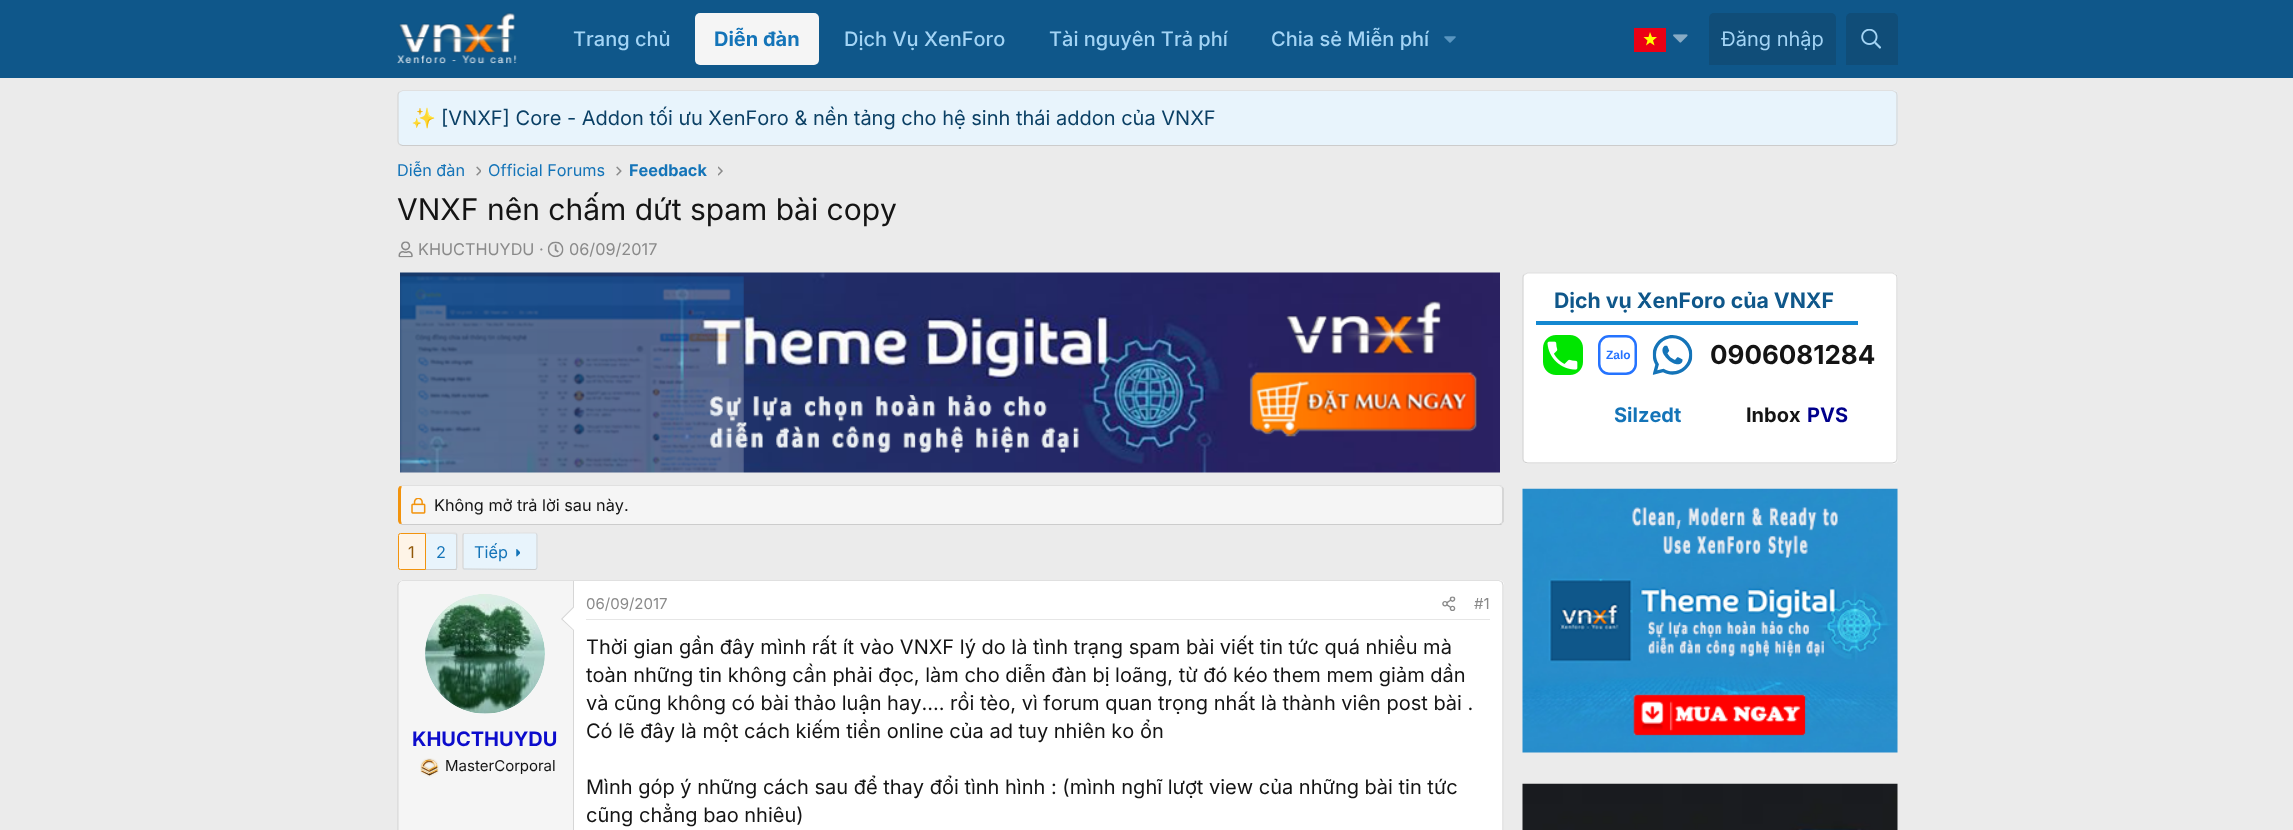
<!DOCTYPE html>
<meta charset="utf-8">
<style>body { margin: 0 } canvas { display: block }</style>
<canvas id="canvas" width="2293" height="830"></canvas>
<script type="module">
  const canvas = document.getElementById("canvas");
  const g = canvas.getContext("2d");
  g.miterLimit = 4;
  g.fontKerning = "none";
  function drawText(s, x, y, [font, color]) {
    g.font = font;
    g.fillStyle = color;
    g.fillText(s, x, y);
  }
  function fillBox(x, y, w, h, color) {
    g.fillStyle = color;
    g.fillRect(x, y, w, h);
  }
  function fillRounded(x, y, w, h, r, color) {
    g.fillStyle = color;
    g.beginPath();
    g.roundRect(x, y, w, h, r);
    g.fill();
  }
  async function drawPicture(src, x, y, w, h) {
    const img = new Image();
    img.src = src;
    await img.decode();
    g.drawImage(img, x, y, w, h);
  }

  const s1 = ["500 20px Inter", "#A3D4F5"];
  const s2 = ["bold 20px Inter", "#1474B8"];
  const s3 = ["20px Inter", "#A3D4F5"];
  const s4 = ["20px Noto Color Emoji", "#0B4065"];
  const s5 = ["20px Inter", "#0B4065"];
  const s6 = ["16.25px Inter", "#1474B8"];
  const s7 = ["bold 16.25px Inter", "#1474B8"];
  const s8 = ["30px Inter", "#141414"];
  const s9 = ["16.25px Inter", "#8A8A8A"];
  const s10 = ["bold 21.25px Inter", "#0F578A"];
  const s11 = ["bold 12px Liberation Sans", "#2573FF"];
  const s12 = ["bold 26px Inter", "#141414"];
  const s13 = ["bold 20px Inter", "#141414"];
  const s14 = ["bold 20px Inter", "#00008B"];
  const s15 = ["16.25px Inter", "#141414"];
  const s16 = ["16.25px Inter", "#915808"];
  const s17 = ["bold 20px Inter", "#0C0CCC"];
  const s18 = ["15px Inter", "#141414"];
  const s19 = ["15px Inter", "#8A8A8A"];
  const s20 = ["20px Inter", "#141414"];

  fillBox(0, 0, 2293, 830, "#EBEBEB");
  fillBox(0, 0, 2293, 78, "#0F578A");
  await drawPicture("pic1.png", 397, 12, 120, 52);
  drawText("Trang chủ", 573, 46, s1);
  fillRounded(695, 13, 124, 52, 5, "#F5F5F5");
  drawText("Diễn đàn", 714, 46, s2);
  drawText("Dịch Vụ XenForo", 844, 46, s1);
  drawText("Tài nguyên Trả phí", 1049, 46, s1);
  drawText("Chia sẻ Miễn phí", 1271, 46, s1);
  await drawPicture("pic2.png", 1444, 36, 12, 7);
  fillBox(1634, 28, 32, 24, "#EC0015");
  g.fillStyle = "#FFFF00";
  g.beginPath();
  g.moveTo(1654.5, 45.5);
  g.lineTo(1650, 42.5);
  g.lineTo(1646, 45.5);
  g.lineTo(1647.5, 40.5);
  g.lineTo(1643.5, 37);
  g.lineTo(1648.5, 37);
  g.lineTo(1650, 32);
  g.lineTo(1652, 37);
  g.lineTo(1657, 37);
  g.lineTo(1653, 40.5);
  g.closePath();
  g.fill("evenodd");
  await drawPicture("pic3.png", 1673, 34, 15, 9);
  g.fillStyle = "#104D78";
  g.beginPath();
  g.roundRect(1709, 13, 127, 52, [5, 5, 0, 0]);
  g.fill();
  drawText("Đăng nhập", 1721, 46, s3);
  g.fillStyle = "#104D78";
  g.beginPath();
  g.roundRect(1846, 13, 52, 52, [5, 5, 0, 0]);
  g.fill();
  await drawPicture("pic4.png", 1861, 29, 20, 20);
  fillRounded(398, 90, 1500, 56, 5, "#E8F4FC");
  g.beginPath();
  g.moveTo(399.5, 92);
  g.lineTo(402.5, 90.5);
  g.lineTo(1892.5, 90.5);
  g.lineTo(1895.5, 92);
  g.strokeStyle = "#E0E0E0";
  g.lineWidth = 1.2;
  g.stroke();
  g.beginPath();
  g.moveTo(1895.5, 92);
  g.bezierCurveTo(1896.5, 92.5, 1897, 94, 1897, 95);
  g.lineTo(1897, 141);
  g.bezierCurveTo(1897, 142.5, 1896.5, 143.5, 1895.5, 144.5);
  g.strokeStyle = "#D6D6D6";
  g.stroke();
  g.beginPath();
  g.moveTo(1895.5, 144.5);
  g.lineTo(1892.5, 145.5);
  g.lineTo(402.5, 145.5);
  g.lineTo(399.5, 144.5);
  g.strokeStyle = "#CCCCCC";
  g.stroke();
  g.beginPath();
  g.moveTo(399.5, 144.5);
  g.bezierCurveTo(398.5, 143.5, 398, 142.5, 398, 141);
  g.lineTo(398, 95);
  g.bezierCurveTo(398, 94, 398.5, 92.5, 399.5, 92);
  g.strokeStyle = "#D6D6D6";
  g.stroke();
  drawText("✨", 411, 125, s4);
  drawText("[VNXF] Core - Addon tối ưu XenForo & nền tảng cho hệ sinh thái addon của VNXF", 441, 125, s5);
  drawText("Diễn đàn", 397, 176, s6);
  await drawPicture("pic5.png", 476, 166, 5, 10);
  drawText("Official Forums", 488, 176, s6);
  await drawPicture("pic6.png", 616, 166, 6, 10);
  drawText("Feedback", 629, 176, s7);
  await drawPicture("pic7.png", 718, 166, 5, 10);
  drawText("VNXF nên chấm dứt spam bài copy", 397, 220, s8);
  await drawPicture("pic8.png", 398, 241, 15, 17);
  drawText("KHUCTHUYDU ·", 418, 255, s9);
  await drawPicture("pic9.png", 547, 241, 17, 17);
  drawText("06/09/2017", 569, 255, s9);
  fillRounded(1523, 273, 375, 191, 5, "#FFFFFF");
  g.beginPath();
  g.moveTo(1524.5, 274.5);
  g.lineTo(1527.5, 273);
  g.lineTo(1892.5, 273);
  g.lineTo(1895.5, 274.5);
  g.strokeStyle = "#E0E0E0";
  g.stroke();
  g.beginPath();
  g.moveTo(1895.5, 274.5);
  g.bezierCurveTo(1896.5, 275, 1897, 276.5, 1897, 277.5);
  g.lineTo(1897, 459);
  g.bezierCurveTo(1897, 460, 1896.5, 461, 1895.5, 462);
  g.strokeStyle = "#D6D6D6";
  g.stroke();
  g.beginPath();
  g.moveTo(1895.5, 462);
  g.lineTo(1892.5, 463);
  g.lineTo(1527.5, 463);
  g.lineTo(1524.5, 462);
  g.strokeStyle = "#CCCCCC";
  g.stroke();
  g.beginPath();
  g.moveTo(1524.5, 462);
  g.bezierCurveTo(1523.5, 461, 1523, 460, 1523, 459);
  g.lineTo(1523, 277.5);
  g.bezierCurveTo(1523, 276.5, 1523.5, 275, 1524.5, 274.5);
  g.strokeStyle = "#D6D6D6";
  g.stroke();
  fillBox(1536, 321, 322, 4, "#1488D1");
  drawText("Dịch vụ XenForo của VNXF", 1554, 308, s10);
  await drawPicture("pic10.png", 1543, 335, 40, 40);
  g.beginPath();
  g.roundRect(1599.25, 336.25, 36.5, 37.5, 9.75);
  g.strokeStyle = "#2573FF";
  g.lineWidth = 2.5;
  g.stroke();
  drawText("Zalo", 1606, 359, s11);
  await drawPicture("pic11.png", 1652, 335, 41, 40);
  drawText("0906081284", 1710, 364, s12);
  drawText("Silzedt", 1614, 422, s2);
  drawText("Inbox", 1746, 422, s13);
  drawText("PVS", 1807, 422, s14);
  await drawPicture("pic12.png", 1522, 488, 376, 265);
  await drawPicture("pic13.png", 1522, 783, 376, 47);
  await drawPicture("pic14.png", 400, 272, 1100, 201);
  g.fillStyle = "#F5F5F5";
  g.beginPath();
  g.moveTo(402, 486);
  g.lineTo(1499, 486);
  g.bezierCurveTo(1501, 486, 1502, 488, 1502, 490);
  g.lineTo(1502, 520);
  g.bezierCurveTo(1502, 522, 1501, 524, 1499, 524);
  g.lineTo(402, 524);
  g.bezierCurveTo(402, 524, 401, 522, 401, 520);
  g.lineTo(401, 490);
  g.bezierCurveTo(401, 488, 402, 486, 402, 486);
  g.closePath();
  g.fill();
  g.fillStyle = "#E0E0E0";
  g.beginPath();
  g.moveTo(402, 485);
  g.lineTo(400, 486);
  g.lineTo(402, 486);
  g.lineTo(1499, 486);
  g.bezierCurveTo(1500, 486, 1501, 487, 1501, 487);
  g.lineTo(1502, 486);
  g.bezierCurveTo(1502, 485, 1500, 485, 1499, 485);
  g.closePath();
  g.fill();
  g.fillStyle = "#D6D6D6";
  g.beginPath();
  g.moveTo(1504, 521.5);
  g.lineTo(1502.5, 523.5);
  g.lineTo(1501.5, 522.5);
  g.bezierCurveTo(1502, 522, 1502, 521, 1502, 520);
  g.lineTo(1502, 490);
  g.bezierCurveTo(1502, 489, 1502, 488, 1501.5, 487.5);
  g.lineTo(1502.5, 486.5);
  g.lineTo(1504, 488.5);
  g.closePath();
  g.fill();
  g.fillStyle = "#CCCCCC";
  g.beginPath();
  g.moveTo(402, 525);
  g.lineTo(1499, 525);
  g.bezierCurveTo(1500, 525, 1502, 525, 1502, 524);
  g.lineTo(1501, 523);
  g.bezierCurveTo(1501, 523, 1500, 524, 1499, 524);
  g.lineTo(402, 524);
  g.lineTo(400, 524);
  g.closePath();
  g.fill();
  g.fillStyle = "#F2930D";
  g.beginPath();
  g.moveTo(400, 486);
  g.bezierCurveTo(399, 486.5, 398, 488, 398, 490);
  g.lineTo(398, 520);
  g.bezierCurveTo(398, 522, 399, 523.5, 400, 524);
  g.lineTo(402, 523.5);
  g.bezierCurveTo(401.5, 523, 401, 521.5, 401, 520);
  g.lineTo(401, 490);
  g.bezierCurveTo(401, 488.5, 401.5, 487, 402, 486.5);
  g.closePath();
  g.fill();
  await drawPicture("pic15.png", 411, 498, 15, 16);
  drawText("Không mở trả lời sau này.", 434, 511, s15);
  g.fillStyle = "#FEF4E7";
  g.beginPath();
  g.roundRect(398.5, 533.5, 27, 36, [2, 0, 0, 2]);
  g.fill();
  g.strokeStyle = "#F2930D";
  g.lineWidth = 1;
  g.stroke();
  drawText("1", 408, 558, s16);
  g.fillStyle = "#E8F4FC";
  g.beginPath();
  g.roundRect(426, 533, 32, 37, [0, 2.5, 2.5, 0]);
  g.fill();
  g.fillStyle = "#E0E0E0";
  g.beginPath();
  g.moveTo(426, 532.5);
  g.lineTo(455, 532.5);
  g.bezierCurveTo(456, 532.5, 456.5, 533, 457, 533);
  g.lineTo(455.5, 534.5);
  g.bezierCurveTo(455, 533.5, 429.5, 534, 426, 534);
  g.closePath();
  g.fill();
  g.fillStyle = "#D6D6D6";
  g.beginPath();
  g.moveTo(456, 568.5);
  g.lineTo(456, 535);
  g.lineTo(455.5, 534.5);
  g.lineTo(457, 533);
  g.bezierCurveTo(457, 533.5, 457.5, 534, 457.5, 535);
  g.lineTo(457.5, 567.5);
  g.bezierCurveTo(457.5, 568, 457, 569, 457, 569.5);
  g.closePath();
  g.fill();
  g.fillStyle = "#CCCCCC";
  g.beginPath();
  g.moveTo(426, 569);
  g.lineTo(455, 569);
  g.lineTo(456, 568.5);
  g.lineTo(457, 569.5);
  g.bezierCurveTo(456.5, 570, 456, 570, 455, 570);
  g.lineTo(426, 570);
  g.closePath();
  g.fill();
  drawText("2", 436, 558, s6);
  fillRounded(463, 533, 75, 37, 2.5, "#E8F4FC");
  g.beginPath();
  g.moveTo(463.5, 533.5);
  g.lineTo(523.5, 533);
  g.lineTo(535, 533);
  g.lineTo(536.5, 533.5);
  g.strokeStyle = "#E0E0E0";
  g.lineWidth = 1.2;
  g.stroke();
  g.beginPath();
  g.moveTo(536.5, 533.5);
  g.lineTo(537, 535);
  g.lineTo(537, 567.5);
  g.lineTo(536.5, 569);
  g.strokeStyle = "#D6D6D6";
  g.stroke();
  g.beginPath();
  g.moveTo(536.5, 569);
  g.lineTo(535, 569.5);
  g.lineTo(463.5, 569);
  g.strokeStyle = "#CCCCCC";
  g.stroke();
  g.beginPath();
  g.moveTo(463.5, 569);
  g.lineTo(463, 567.5);
  g.lineTo(463, 535);
  g.lineTo(463.5, 533.5);
  g.strokeStyle = "#D6D6D6";
  g.stroke();
  drawText("Tiếp", 474, 558, s6);
  await drawPicture("pic16.png", 516, 549, 4, 8);
  fillRounded(398, 580, 1106, 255, 5, "#FFFFFF");
  g.beginPath();
  g.moveTo(399.5, 582);
  g.lineTo(402.5, 580.5);
  g.lineTo(1499, 580.5);
  g.lineTo(1502, 582);
  g.strokeStyle = "#E0E0E0";
  g.stroke();
  g.beginPath();
  g.moveTo(1502, 582);
  g.lineTo(1503, 585);
  g.lineTo(1503, 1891);
  g.lineTo(1502, 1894.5);
  g.strokeStyle = "#D6D6D6";
  g.stroke();
  g.beginPath();
  g.moveTo(399.5, 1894.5);
  g.lineTo(398, 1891);
  g.lineTo(398, 585);
  g.lineTo(399.5, 582);
  g.stroke();
  g.fillStyle = "#F5F5F5";
  g.beginPath();
  g.moveTo(403, 581);
  g.lineTo(574, 581);
  g.lineTo(574, 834);
  g.lineTo(403, 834);
  g.bezierCurveTo(401, 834, 399, 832, 399, 830);
  g.lineTo(399, 585);
  g.bezierCurveTo(399, 583, 401, 581, 403, 581);
  g.closePath();
  g.fill();
  fillBox(573, 581, 1, 249, "#D6D6D6");
  g.fillStyle = "#FFFFFF";
  g.beginPath();
  g.arc(485, 654, 60, 0, Math.PI * 2);
  g.fill();
  await drawPicture("pic17.png", 425, 594, 120, 120);
  g.fillStyle = "#D6D6D6";
  g.beginPath();
  g.moveTo(574, 606);
  g.lineTo(574, 631);
  g.lineTo(561, 619);
  g.closePath();
  g.fill();
  g.fillStyle = "#FFFFFF";
  g.beginPath();
  g.moveTo(574, 607.5);
  g.lineTo(574, 630);
  g.lineTo(562.5, 619);
  g.closePath();
  g.fill();
  drawText("KHUCTHUYDU", 412, 746, s17);
  await drawPicture("pic18.png", 420, 758, 19, 19);
  drawText("MasterCorporal", 445, 771, s18);
  fillBox(586, 619, 904, 1, "#E6E6E6");
  drawText("06/09/2017", 586, 609, s19);
  await drawPicture("pic19.png", 1442, 596, 14, 15);
  drawText("#1", 1474, 609, s19);
  drawText("Thời gian gần đây mình rất ít vào VNXF lý do là tình trạng spam bài viết tin tức quá nhiều mà", 586, 654, s20);
  drawText("toàn những tin không cần phải đọc, làm cho diễn đàn bị loãng, từ đó kéo them mem giảm dần", 586, 682, s20);
  drawText("và cũng không có bài thảo luận hay.... rồi tèo, vì forum quan trọng nhất là thành viên post bài .", 586, 710, s20);
  drawText("Có lẽ đây là một cách kiếm tiền online của ad tuy nhiên ko ổn", 586, 738, s20);
  drawText("Mình góp ý những cách sau để thay đổi tình hình : (mình nghĩ lượt view của những bài tin tức", 586, 794, s20);
  drawText("cũng chẳng bao nhiêu)", 586, 822, s20);
</script>
